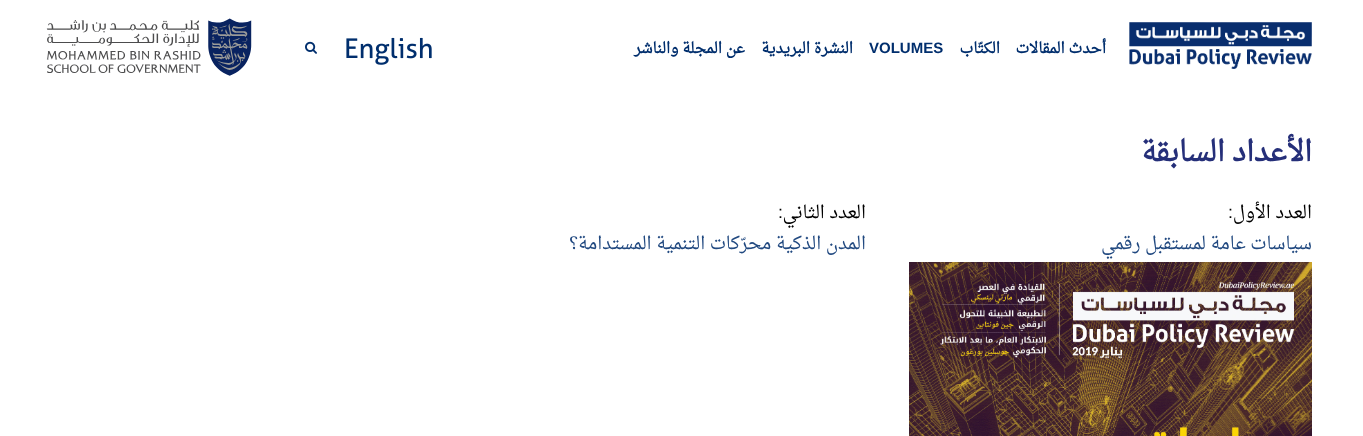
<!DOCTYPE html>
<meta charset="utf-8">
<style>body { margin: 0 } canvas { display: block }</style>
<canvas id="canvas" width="1363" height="436"></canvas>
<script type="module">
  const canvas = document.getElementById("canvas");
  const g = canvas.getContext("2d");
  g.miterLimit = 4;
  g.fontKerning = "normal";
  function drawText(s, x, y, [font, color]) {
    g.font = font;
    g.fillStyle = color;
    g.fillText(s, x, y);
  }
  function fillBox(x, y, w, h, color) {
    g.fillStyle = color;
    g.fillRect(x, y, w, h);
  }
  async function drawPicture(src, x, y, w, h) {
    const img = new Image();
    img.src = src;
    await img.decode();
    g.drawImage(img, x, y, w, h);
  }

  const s1 = ["bold 15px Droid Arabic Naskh", "#002E6D"];
  const s2 = ["bold 15px Liberation Sans", "#002E6D"];
  const s3 = ["bold 28.5px Droid Arabic Naskh", "#252F79"];
  const s4 = ["17.75px Droid Arabic Naskh", "#000000"];
  const s5 = ["17.75px Liberation Sans", "#000000"];
  const s6 = ["17.75px Droid Arabic Naskh", "#214980"];

  fillBox(0, 0, 1363, 436, "#FFFFFF");
  await drawPicture("pic1.png", 1129, 22, 183, 47);
  g.direction = "rtl";
  drawText("أحدث المقالات", 1106, 53, s1);
  drawText("الكتّاب", 1000, 53, s1);
  g.direction = "ltr";
  drawText("VOLUMES", 869, 53, s2);
  g.direction = "rtl";
  drawText("النشرة البريدية", 853, 53, s1);
  drawText("عن المجلة والناشر", 745, 53, s1);
  await drawPicture("pic2.png", 346, 37, 86, 28);
  await drawPicture("pic3.png", 305, 41, 12, 13);
  await drawPicture("pic4.png", 46, 18, 206, 58);
  drawText("الأعداد السابقة", 1312, 161, s3);
  drawText("العدد الأول", 1312, 218, s4);
  drawText(":", 1233, 218, s5);
  drawText("سياسات عامة لمستقبل رقمي", 1312, 249, s6);
  drawText("العدد الثاني", 866, 218, s4);
  drawText(":", 783, 218, s5);
  drawText("المدن الذكية محرّكات التنمية المستدامة؟", 866, 249, s6);
  await drawPicture("pic5.png", 909, 262, 403, 174);
</script>
